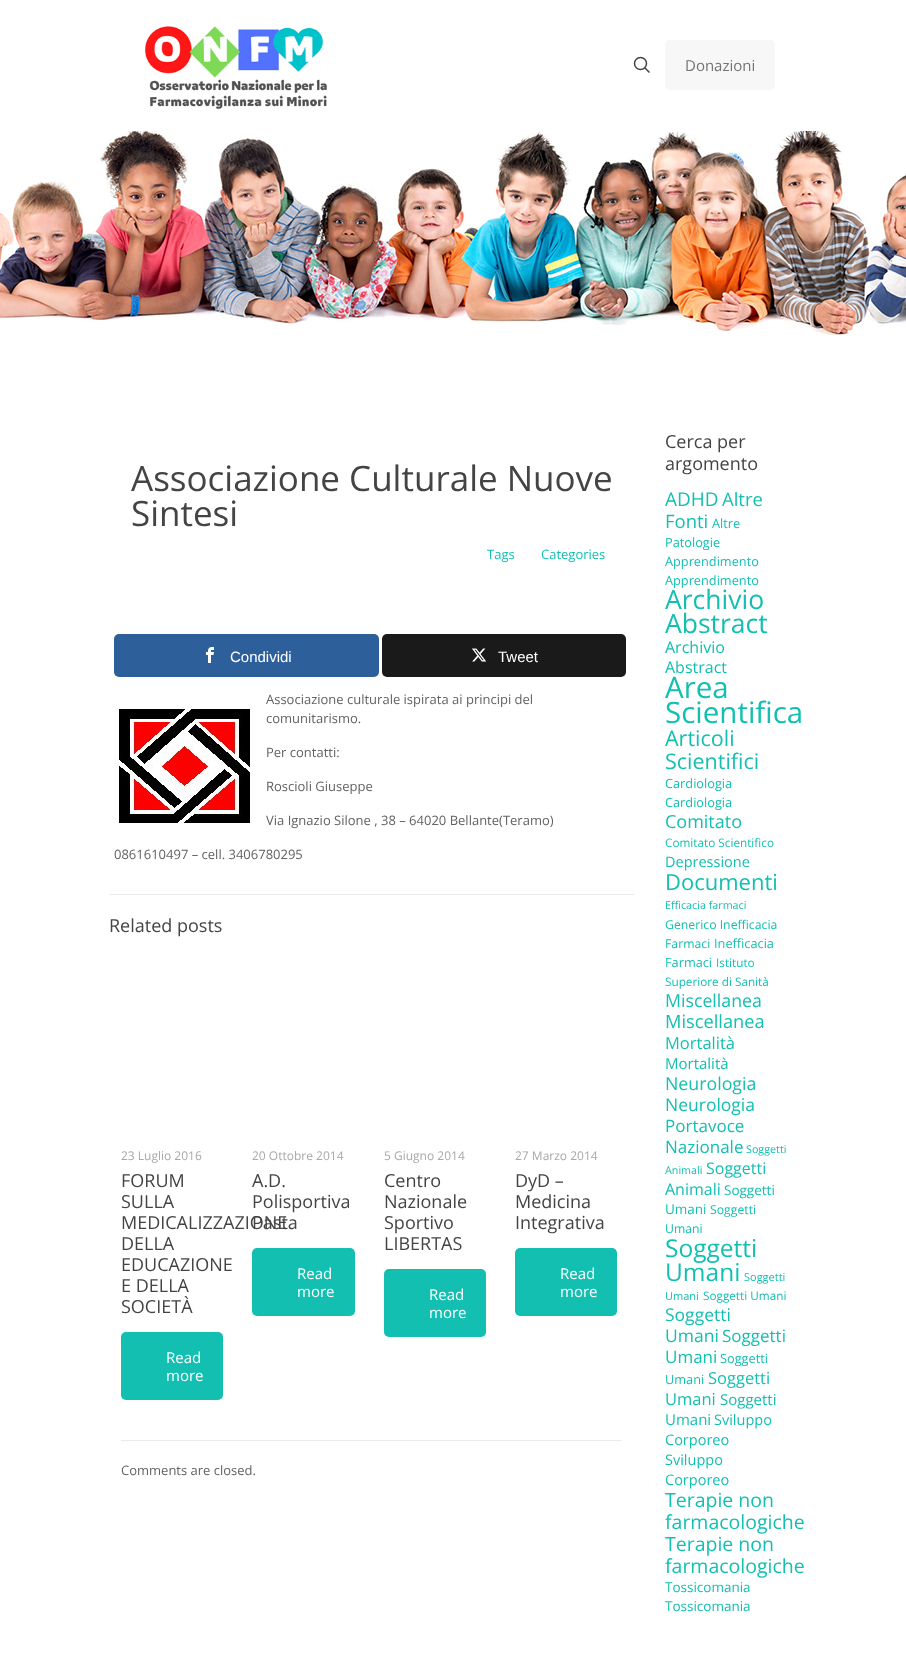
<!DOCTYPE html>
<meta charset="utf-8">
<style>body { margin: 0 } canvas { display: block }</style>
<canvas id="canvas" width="906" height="1663"></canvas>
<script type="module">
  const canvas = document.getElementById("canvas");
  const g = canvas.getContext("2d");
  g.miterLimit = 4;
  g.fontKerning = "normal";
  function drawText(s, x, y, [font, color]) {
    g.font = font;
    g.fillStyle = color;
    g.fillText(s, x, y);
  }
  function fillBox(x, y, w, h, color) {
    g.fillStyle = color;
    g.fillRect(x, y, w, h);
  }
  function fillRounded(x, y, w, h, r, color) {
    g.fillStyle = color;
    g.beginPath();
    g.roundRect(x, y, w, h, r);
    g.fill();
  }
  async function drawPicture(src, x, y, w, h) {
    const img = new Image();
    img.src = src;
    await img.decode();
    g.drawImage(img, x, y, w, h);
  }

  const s1 = ["15px Open Sans", "#747474"];
  const s2 = ["35px Open Sans", "#444444"];
  const s3 = ["13px Open Sans", "#13BFB1"];
  const s4 = ["15px Liberation Sans", "#FFFFFF"];
  const s5 = ["13px Open Sans", "#626262"];
  const s6 = ["18px Open Sans", "#444444"];
  const s7 = ["12px Open Sans", "#A8A8A8"];
  const s8 = ["15px Open Sans", "#FFFFFF"];
  const s9 = ["19px Open Sans", "#13BFB1"];
  const s10 = ["18.5px Open Sans", "#13BFB1"];
  const s11 = ["12.75px Open Sans", "#13BFB1"];
  const s12 = ["26.5px Open Sans", "#13BFB1"];
  const s13 = ["16px Open Sans", "#13BFB1"];
  const s14 = ["29.5px Open Sans", "#13BFB1"];
  const s15 = ["21.5px Open Sans", "#13BFB1"];
  const s16 = ["18px Open Sans", "#13BFB1"];
  const s17 = ["11.75px Open Sans", "#13BFB1"];
  const s18 = ["14.5px Open Sans", "#13BFB1"];
  const s19 = ["22px Open Sans", "#13BFB1"];
  const s20 = ["10.75px Open Sans", "#13BFB1"];
  const s21 = ["12.25px Open Sans", "#13BFB1"];
  const s22 = ["17.75px Open Sans", "#13BFB1"];
  const s23 = ["18.25px Open Sans", "#13BFB1"];
  const s24 = ["16.5px Open Sans", "#13BFB1"];
  const s25 = ["15px Open Sans", "#13BFB1"];
  const s26 = ["17.5px Open Sans", "#13BFB1"];
  const s27 = ["17px Open Sans", "#13BFB1"];
  const s28 = ["13.5px Open Sans", "#13BFB1"];
  const s29 = ["24.5px Open Sans", "#13BFB1"];
  const s30 = ["11px Open Sans", "#13BFB1"];
  const s31 = ["19.5px Open Sans", "#13BFB1"];

  fillBox(0, 0, 906, 1663, "#FFFFFF");
  await drawPicture("pic1.png", 0, 131, 906, 205);
  await drawPicture("pic2.png", 145, 26, 183, 84);
  g.beginPath();
  g.arc(640.5, 63.5, 6, 0, Math.PI * 2);
  g.strokeStyle = "#444444";
  g.lineWidth = 1.5;
  g.stroke();
  g.beginPath();
  g.moveTo(644.5, 67.5);
  g.lineTo(649.5, 72.5);
  g.stroke();
  fillRounded(665, 40, 110, 50, 5, "#F7F7F7");
  drawText("Donazioni", 685, 71, s1);
  drawText("Associazione Culturale Nuove", 131, 491, s2);
  drawText("Sintesi", 131, 526, s2);
  drawText("Tags", 487, 559, s3);
  drawText("Categories", 541, 559, s3);
  fillRounded(114, 634, 265, 43, 5, "#2D5F9A");
  await drawPicture("pic3.png", 206, 647, 8, 16);
  drawText("Condividi", 230, 662, s4);
  fillRounded(382, 634, 244, 43, 5, "#1A1A1A");
  await drawPicture("pic4.png", 472, 648, 15, 14);
  drawText("Tweet", 498, 662, s4);
  drawText("Associazione culturale ispirata ai principi del", 266, 704, s5);
  await drawPicture("pic5.png", 114, 706, 136, 117);
  drawText("comunitarismo.", 266, 723, s5);
  drawText("Per contatti:", 266, 757, s5);
  drawText("Roscioli Giuseppe", 266, 791, s5);
  drawText("Via Ignazio Silone , 38 – 64020 Bellante(Teramo)", 266, 825, s5);
  drawText("0861610497 – cell. 3406780295", 114, 859, s5);
  fillBox(109, 894, 525, 1, "#EBEBEB");
  drawText("Related posts", 109, 932, s6);
  drawText("23 Luglio 2016", 121, 1160, s7);
  drawText("FORUM", 121, 1187, s6);
  drawText("SULLA", 121, 1208, s6);
  drawText("MEDICALIZZAZIONE", 121, 1229, s6);
  drawText("DELLA", 121, 1250, s6);
  drawText("EDUCAZIONE", 121, 1271, s6);
  drawText("E DELLA", 121, 1292, s6);
  drawText("SOCIETÀ", 121, 1313, s6);
  fillRounded(121, 1332, 102, 68, 5, "#13BFB1");
  drawText("Read", 166, 1363, s8);
  drawText("more", 166, 1381, s8);
  drawText("20 Ottobre 2014", 252, 1160, s7);
  drawText("A.D.", 252, 1187, s6);
  drawText("Polisportiva", 252, 1208, s6);
  drawText("Pasta", 252, 1229, s6);
  fillRounded(252, 1248, 103, 68, 5, "#13BFB1");
  drawText("Read", 297, 1279, s8);
  drawText("more", 297, 1297, s8);
  drawText("5 Giugno 2014", 384, 1160, s7);
  drawText("Centro", 384, 1187, s6);
  drawText("Nazionale", 384, 1208, s6);
  drawText("Sportivo", 384, 1229, s6);
  drawText("LIBERTAS", 384, 1250, s6);
  fillRounded(384, 1269, 102, 68, 5, "#13BFB1");
  drawText("Read", 429, 1300, s8);
  drawText("more", 429, 1318, s8);
  drawText("27 Marzo 2014", 515, 1160, s7);
  drawText("DyD –", 515, 1187, s6);
  drawText("Medicina", 515, 1208, s6);
  drawText("Integrativa", 515, 1229, s6);
  fillRounded(515, 1248, 102, 68, 5, "#13BFB1");
  drawText("Read", 560, 1279, s8);
  drawText("more", 560, 1297, s8);
  fillBox(121, 1440, 501, 1, "#EBEBEB");
  drawText("Comments are closed.", 121, 1475, s5);
  drawText("Cerca per", 665, 448, s6);
  drawText("argomento", 665, 470, s6);
  drawText("ADHD", 665, 506, s9);
  drawText("Altre", 722, 506, s10);
  drawText("Fonti", 665, 528, s10);
  drawText("Altre", 712, 528, s11);
  drawText("Patologie", 665, 547, s11);
  drawText("Apprendimento", 665, 566, s11);
  drawText("Apprendimento", 665, 585, s11);
  drawText("Archivio", 665, 609, s12);
  drawText("Abstract", 665, 633, s12);
  drawText("Archivio", 665, 653, s13);
  drawText("Abstract", 665, 673, s13);
  drawText("Area", 665, 698, s14);
  drawText("Scientifica", 665, 723, s14);
  drawText("Articoli", 665, 746, s15);
  drawText("Scientifici", 665, 769, s15);
  drawText("Cardiologia", 665, 788, s11);
  drawText("Cardiologia", 665, 807, s11);
  drawText("Comitato", 665, 828, s16);
  drawText("Comitato Scientifico", 665, 847, s17);
  drawText("Depressione", 665, 867, s18);
  drawText("Documenti", 665, 890, s19);
  drawText("Efficacia farmaci", 665, 909, s20);
  drawText("Generico Inefficacia", 665, 929, s21);
  drawText("Farmaci", 665, 948, s21);
  drawText("Inefficacia", 714, 948, s11);
  drawText("Farmaci", 665, 967, s11);
  drawText("Istituto", 716, 967, s17);
  drawText("Superiore di Sanità", 665, 986, s17);
  drawText("Miscellanea", 665, 1007, s22);
  drawText("Miscellanea", 665, 1028, s23);
  drawText("Mortalità", 665, 1049, s24);
  drawText("Mortalità", 665, 1069, s25);
  drawText("Neurologia", 665, 1090, s22);
  drawText("Neurologia", 665, 1111, s26);
  drawText("Portavoce", 665, 1132, s27);
  drawText("Nazionale", 665, 1153, s27);
  drawText("Soggetti", 746, 1153, s20);
  drawText("Animali", 665, 1174, s20);
  drawText("Soggetti", 706, 1174, s13);
  drawText("Animali", 665, 1195, s13);
  drawText("Soggetti", 724, 1195, s28);
  drawText("Umani", 665, 1214, s28);
  drawText("Soggetti", 710, 1214, s21);
  drawText("Umani", 665, 1233, s21);
  drawText("Soggetti", 665, 1257, s29);
  drawText("Umani", 665, 1281, s29);
  drawText("Soggetti", 744, 1281, s30);
  drawText("Umani", 665, 1300, s30);
  drawText("Soggetti Umani", 703, 1300, s17);
  drawText("Soggetti", 665, 1321, s26);
  drawText("Umani", 665, 1342, s26);
  drawText("Soggetti", 722, 1342, s27);
  drawText("Umani", 665, 1363, s27);
  drawText("Soggetti", 720, 1363, s11);
  drawText("Umani", 665, 1384, s11);
  drawText("Soggetti", 708, 1384, s24);
  drawText("Umani", 665, 1405, s24);
  drawText("Soggetti", 720, 1405, s25);
  drawText("Umani", 665, 1425, s25);
  drawText("Sviluppo", 714, 1425, s18);
  drawText("Corporeo", 665, 1445, s18);
  drawText("Sviluppo", 665, 1465, s18);
  drawText("Corporeo", 665, 1485, s18);
  drawText("Terapie non", 665, 1507, s31);
  drawText("farmacologiche", 665, 1529, s31);
  drawText("Terapie non", 665, 1551, s31);
  drawText("farmacologiche", 665, 1573, s31);
  drawText("Tossicomania", 665, 1592, s28);
  drawText("Tossicomania", 665, 1611, s28);
</script>
